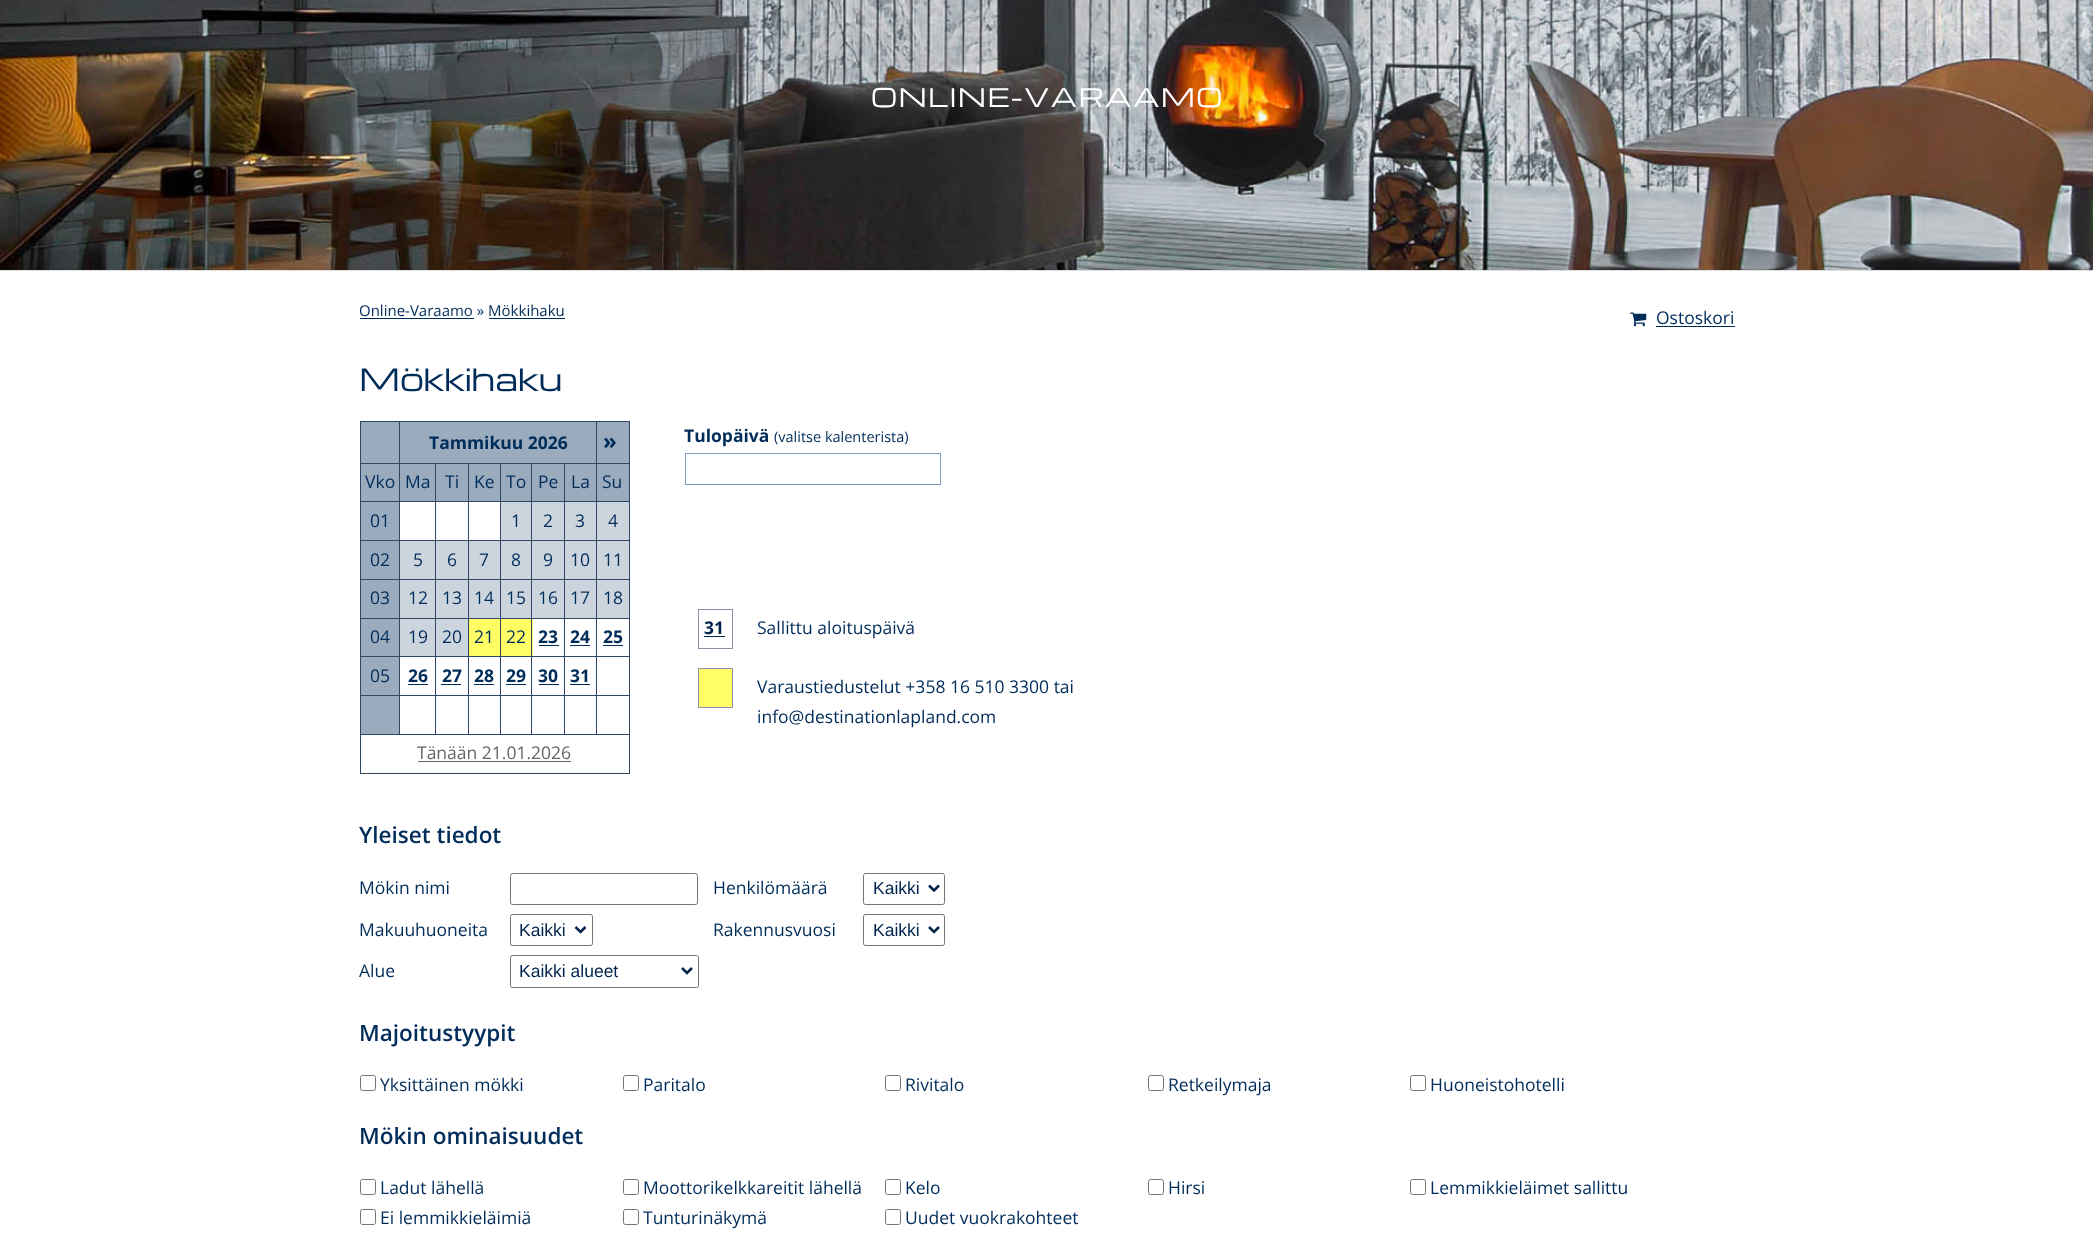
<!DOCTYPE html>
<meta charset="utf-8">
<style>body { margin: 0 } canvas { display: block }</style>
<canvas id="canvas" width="2093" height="1241"></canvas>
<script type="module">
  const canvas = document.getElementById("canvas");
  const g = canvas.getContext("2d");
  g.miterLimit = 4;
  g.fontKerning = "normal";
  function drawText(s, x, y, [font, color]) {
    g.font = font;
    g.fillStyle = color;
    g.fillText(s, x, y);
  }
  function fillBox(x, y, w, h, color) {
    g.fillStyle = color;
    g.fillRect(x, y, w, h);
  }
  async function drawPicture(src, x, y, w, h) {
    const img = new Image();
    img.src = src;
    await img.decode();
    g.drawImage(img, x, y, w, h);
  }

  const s1 = ["25px Michroma", "#FFFFFF"];
  const s2 = ["15px Open Sans", "#002C5A"];
  const s3 = ["17.5px Open Sans", "#002C5A"];
  const s4 = ["30px Michroma", "#002C5A"];
  const s5 = ["bold 17.5px Open Sans", "#002C5A"];
  const s6 = ["bold 22.5px Open Sans", "#002C5A"];
  const s7 = ["17.5px Open Sans", "#666666"];
  const s8 = ["14.5px Open Sans", "#002C5A"];
  const s9 = ["bold 17.5px Open Sans", "#00244D"];
  const s10 = ["600 22.5px Open Sans", "#002C5A"];
  const s11 = ["17.5px Liberation Sans", "#00244D"];

  fillBox(0, 0, 2093, 1241, "#FFFFFF");
  fillBox(0, 270, 2093, 1, "#DFDFDF");
  await drawPicture("pic1.png", 0, 0, 2093, 270);
  g.letterSpacing = "1.25px";
  drawText("ONLINE-VARAAMO", 871, 107, s1);
  g.letterSpacing = "0px";
  drawText("Online-Varaamo » Mökkihaku", 359, 316, s2);
  fillBox(360, 318, 114, 1, "#002C5A");
  fillBox(489, 318, 76, 1, "#002C5A");
  await drawPicture("pic2.png", 1630, 312, 17, 15);
  drawText("Ostoskori", 1656, 324, s3);
  fillBox(1656, 326, 79, 1, "#002C5A");
  drawText("Mökkihaku", 359, 391, s4);
  fillBox(360, 421, 270, 1, "#2F4665");
  fillBox(629, 421, 1, 353, "#2F4665");
  fillBox(360, 773, 270, 1, "#2F4665");
  fillBox(360, 421, 1, 353, "#2F4665");
  fillBox(361, 422, 38, 41, "#9AABBD");
  fillBox(400, 422, 196, 41, "#9AABBD");
  fillBox(596, 463, 34, 1, "#2F4665");
  fillBox(596, 501, 34, 1, "#2F4665");
  fillBox(596, 540, 34, 1, "#2F4665");
  fillBox(596, 579, 34, 1, "#2F4665");
  fillBox(596, 618, 34, 1, "#2F4665");
  fillBox(596, 656, 34, 1, "#2F4665");
  fillBox(596, 695, 34, 1, "#2F4665");
  fillBox(360, 734, 270, 1, "#2F4665");
  fillBox(596, 695, 1, 40, "#2F4665");
  fillBox(564, 695, 34, 1, "#2F4665");
  fillBox(596, 656, 1, 40, "#2F4665");
  fillBox(564, 656, 34, 1, "#2F4665");
  fillBox(596, 618, 1, 40, "#2F4665");
  fillBox(564, 618, 34, 1, "#2F4665");
  fillBox(596, 579, 1, 40, "#2F4665");
  fillBox(564, 579, 34, 1, "#2F4665");
  fillBox(596, 540, 1, 40, "#2F4665");
  fillBox(564, 540, 34, 1, "#2F4665");
  fillBox(596, 501, 1, 40, "#2F4665");
  fillBox(564, 501, 34, 1, "#2F4665");
  fillBox(596, 463, 1, 40, "#2F4665");
  fillBox(564, 463, 34, 1, "#2F4665");
  fillBox(564, 695, 1, 40, "#2F4665");
  fillBox(531, 695, 34, 1, "#2F4665");
  fillBox(564, 656, 1, 40, "#2F4665");
  fillBox(531, 656, 34, 1, "#2F4665");
  fillBox(564, 618, 1, 40, "#2F4665");
  fillBox(531, 618, 34, 1, "#2F4665");
  fillBox(564, 579, 1, 40, "#2F4665");
  fillBox(531, 579, 34, 1, "#2F4665");
  fillBox(564, 540, 1, 40, "#2F4665");
  fillBox(531, 540, 34, 1, "#2F4665");
  fillBox(564, 501, 1, 40, "#2F4665");
  fillBox(531, 501, 34, 1, "#2F4665");
  fillBox(564, 463, 1, 40, "#2F4665");
  fillBox(531, 463, 34, 1, "#2F4665");
  fillBox(501, 464, 63, 37, "#9AABBD");
  fillBox(501, 502, 63, 38, "#CCD5DD");
  fillBox(501, 541, 63, 38, "#CCD5DD");
  fillBox(501, 580, 63, 38, "#CCD5DD");
  fillBox(501, 619, 32, 37, "#FFFF65");
  fillBox(531, 695, 1, 40, "#2F4665");
  fillBox(500, 695, 33, 1, "#2F4665");
  fillBox(531, 656, 1, 40, "#2F4665");
  fillBox(500, 656, 33, 1, "#2F4665");
  fillBox(531, 618, 1, 40, "#2F4665");
  fillBox(500, 618, 33, 1, "#2F4665");
  fillBox(531, 579, 1, 40, "#2F4665");
  fillBox(500, 579, 33, 1, "#2F4665");
  fillBox(531, 540, 1, 40, "#2F4665");
  fillBox(500, 540, 33, 1, "#2F4665");
  fillBox(531, 501, 1, 40, "#2F4665");
  fillBox(500, 501, 33, 1, "#2F4665");
  fillBox(531, 463, 1, 40, "#2F4665");
  fillBox(500, 463, 33, 1, "#2F4665");
  fillBox(500, 695, 1, 40, "#2F4665");
  fillBox(468, 695, 33, 1, "#2F4665");
  fillBox(500, 656, 1, 40, "#2F4665");
  fillBox(468, 656, 33, 1, "#2F4665");
  fillBox(500, 618, 1, 40, "#2F4665");
  fillBox(468, 618, 33, 1, "#2F4665");
  fillBox(500, 579, 1, 40, "#2F4665");
  fillBox(468, 579, 33, 1, "#2F4665");
  fillBox(500, 540, 1, 40, "#2F4665");
  fillBox(468, 540, 33, 1, "#2F4665");
  fillBox(500, 501, 1, 40, "#2F4665");
  fillBox(468, 501, 33, 1, "#2F4665");
  fillBox(500, 463, 1, 40, "#2F4665");
  fillBox(468, 463, 33, 1, "#2F4665");
  fillBox(468, 695, 1, 40, "#2F4665");
  fillBox(435, 695, 34, 1, "#2F4665");
  fillBox(468, 656, 1, 40, "#2F4665");
  fillBox(435, 656, 34, 1, "#2F4665");
  fillBox(468, 618, 1, 40, "#2F4665");
  fillBox(435, 618, 34, 1, "#2F4665");
  fillBox(468, 579, 1, 40, "#2F4665");
  fillBox(435, 579, 34, 1, "#2F4665");
  fillBox(468, 540, 1, 40, "#2F4665");
  fillBox(435, 540, 34, 1, "#2F4665");
  fillBox(468, 501, 1, 40, "#2F4665");
  fillBox(435, 501, 34, 1, "#2F4665");
  fillBox(468, 463, 1, 40, "#2F4665");
  fillBox(435, 463, 34, 1, "#2F4665");
  fillBox(435, 695, 1, 40, "#2F4665");
  fillBox(399, 695, 37, 1, "#2F4665");
  fillBox(435, 656, 1, 40, "#2F4665");
  fillBox(399, 656, 37, 1, "#2F4665");
  fillBox(435, 618, 1, 40, "#2F4665");
  fillBox(399, 618, 37, 1, "#2F4665");
  fillBox(435, 579, 1, 40, "#2F4665");
  fillBox(399, 579, 37, 1, "#2F4665");
  fillBox(435, 540, 1, 40, "#2F4665");
  fillBox(399, 540, 37, 1, "#2F4665");
  fillBox(435, 501, 1, 40, "#2F4665");
  fillBox(399, 501, 37, 1, "#2F4665");
  fillBox(435, 463, 1, 40, "#2F4665");
  fillBox(399, 463, 37, 1, "#2F4665");
  fillBox(399, 695, 1, 40, "#2F4665");
  fillBox(360, 695, 40, 1, "#2F4665");
  fillBox(399, 656, 1, 40, "#2F4665");
  fillBox(360, 656, 40, 1, "#2F4665");
  fillBox(399, 618, 1, 40, "#2F4665");
  fillBox(360, 618, 40, 1, "#2F4665");
  fillBox(399, 579, 1, 40, "#2F4665");
  fillBox(360, 579, 40, 1, "#2F4665");
  fillBox(399, 540, 1, 40, "#2F4665");
  fillBox(360, 540, 40, 1, "#2F4665");
  fillBox(399, 501, 1, 40, "#2F4665");
  fillBox(360, 501, 40, 1, "#2F4665");
  fillBox(399, 463, 1, 40, "#2F4665");
  fillBox(360, 463, 40, 1, "#2F4665");
  fillBox(399, 421, 1, 43, "#2F4665");
  drawText("Tammikuu 2026", 429, 449, s5);
  fillBox(597, 422, 32, 41, "#9AABBD");
  fillBox(596, 421, 1, 43, "#2F4665");
  drawText("»", 603, 449, s6);
  fillBox(361, 464, 38, 37, "#9AABBD");
  drawText("Vko", 365, 488, s3);
  fillBox(400, 464, 35, 37, "#9AABBD");
  drawText("Ma", 405, 488, s3);
  fillBox(436, 464, 32, 37, "#9AABBD");
  drawText("Ti", 445, 488, s3);
  fillBox(469, 464, 31, 37, "#9AABBD");
  drawText("Ke", 474, 488, s3);
  drawText("To", 506, 488, s3);
  drawText("Pe", 538, 488, s3);
  fillBox(565, 464, 31, 37, "#9AABBD");
  drawText("La", 571, 488, s3);
  fillBox(597, 464, 32, 37, "#9AABBD");
  drawText("Su", 602, 488, s3);
  fillBox(361, 502, 38, 38, "#9AABBD");
  drawText("01", 370, 527, s3);
  drawText("1", 511, 527, s3);
  drawText("2", 543, 527, s3);
  fillBox(565, 502, 31, 38, "#CCD5DD");
  drawText("3", 575, 527, s3);
  fillBox(597, 502, 32, 38, "#CCD5DD");
  drawText("4", 608, 527, s3);
  fillBox(361, 541, 38, 38, "#9AABBD");
  drawText("02", 370, 566, s3);
  fillBox(400, 541, 35, 38, "#CCD5DD");
  drawText("5", 413, 566, s3);
  fillBox(436, 541, 32, 38, "#CCD5DD");
  drawText("6", 447, 566, s3);
  fillBox(469, 541, 31, 38, "#CCD5DD");
  drawText("7", 479, 566, s3);
  drawText("8", 511, 566, s3);
  drawText("9", 543, 566, s3);
  fillBox(565, 541, 31, 38, "#CCD5DD");
  drawText("10", 570, 566, s3);
  fillBox(597, 541, 32, 38, "#CCD5DD");
  drawText("11", 603, 566, s3);
  fillBox(361, 580, 38, 38, "#9AABBD");
  drawText("03", 370, 604, s3);
  fillBox(400, 580, 35, 38, "#CCD5DD");
  drawText("12", 408, 604, s3);
  fillBox(436, 580, 32, 38, "#CCD5DD");
  drawText("13", 442, 604, s3);
  fillBox(469, 580, 31, 38, "#CCD5DD");
  drawText("14", 474, 604, s3);
  drawText("15", 506, 604, s3);
  drawText("16", 538, 604, s3);
  fillBox(565, 580, 31, 38, "#CCD5DD");
  drawText("17", 570, 604, s3);
  fillBox(597, 580, 32, 38, "#CCD5DD");
  drawText("18", 603, 604, s3);
  fillBox(361, 619, 38, 37, "#9AABBD");
  drawText("04", 370, 643, s3);
  fillBox(400, 619, 35, 37, "#CCD5DD");
  drawText("19", 408, 643, s3);
  fillBox(436, 619, 32, 37, "#CCD5DD");
  drawText("20", 442, 643, s3);
  fillBox(469, 619, 31, 37, "#FFFF65");
  drawText("21", 474, 643, s3);
  drawText("22", 506, 643, s3);
  drawText("23", 538, 643, s5);
  fillBox(539, 645, 20, 1, "#002C5A");
  drawText("24", 570, 643, s5);
  fillBox(570, 645, 20, 1, "#002C5A");
  drawText("25", 603, 643, s5);
  fillBox(603, 645, 20, 1, "#002C5A");
  fillBox(361, 657, 38, 38, "#9AABBD");
  drawText("05", 370, 682, s3);
  drawText("26", 408, 682, s5);
  fillBox(408, 684, 20, 1, "#002C5A");
  drawText("27", 442, 682, s5);
  fillBox(441, 684, 20, 1, "#002C5A");
  drawText("28", 474, 682, s5);
  fillBox(474, 684, 20, 1, "#002C5A");
  drawText("29", 506, 682, s5);
  fillBox(506, 684, 20, 1, "#002C5A");
  drawText("30", 538, 682, s5);
  fillBox(539, 684, 20, 1, "#002C5A");
  drawText("31", 570, 682, s5);
  fillBox(570, 684, 20, 1, "#002C5A");
  fillBox(361, 696, 38, 38, "#9AABBD");
  drawText("Tänään 21.01.2026", 417, 759, s7);
  fillBox(418, 761, 153, 1, "#666666");
  drawText("Tulopäivä", 684, 442, s5);
  drawText("(valitse kalenterista)", 774, 442, s8);
  g.strokeStyle = "#7F9DB9";
  g.strokeRect(685.5, 453.5, 255, 31);
  g.strokeStyle = "#8B92A5";
  g.strokeRect(698.5, 609.5, 34, 39);
  drawText("31", 704, 634, s9);
  fillBox(704, 636, 21, 1, "#00244D");
  drawText("Sallittu aloituspäivä", 757, 634, s3);
  g.fillStyle = "#FFFF65";
  g.beginPath();
  g.rect(698.5, 668.5, 34, 39);
  g.fill();
  g.stroke();
  drawText("Varaustiedustelut +358 16 510 3300 tai", 757, 693, s3);
  drawText("info@destinationlapland.com", 757, 723, s3);
  drawText("Yleiset tiedot", 359, 843, s10);
  drawText("Mökin nimi", 359, 894, s3);
  g.beginPath();
  g.roundRect(510.5, 873.5, 187, 31, 2);
  g.strokeStyle = "#767676";
  g.stroke();
  drawText("Makuuhuoneita", 359, 936, s3);
  g.beginPath();
  g.roundRect(510.5, 914.5, 82, 31, 2);
  g.stroke();
  g.beginPath();
  g.moveTo(575.5, 927);
  g.lineTo(580.5, 932);
  g.lineTo(585.5, 927);
  g.strokeStyle = "#00244D";
  g.lineWidth = 2.5;
  g.stroke();
  drawText("Kaikki", 519, 936, s11);
  drawText("Alue", 359, 977, s3);
  g.beginPath();
  g.roundRect(510.5, 955.5, 188, 32, 2);
  g.strokeStyle = "#767676";
  g.lineWidth = 1;
  g.stroke();
  g.beginPath();
  g.moveTo(682, 968);
  g.lineTo(687, 973);
  g.lineTo(692, 968);
  g.strokeStyle = "#00244D";
  g.lineWidth = 2.5;
  g.stroke();
  drawText("Kaikki alueet", 519, 977, s11);
  drawText("Henkilömäärä", 713, 894, s3);
  g.beginPath();
  g.roundRect(863.5, 873.5, 81, 31, 2);
  g.strokeStyle = "#767676";
  g.lineWidth = 1;
  g.stroke();
  g.beginPath();
  g.moveTo(929, 885.5);
  g.lineTo(934, 890.5);
  g.lineTo(939, 885.5);
  g.strokeStyle = "#00244D";
  g.lineWidth = 2.5;
  g.stroke();
  drawText("Kaikki", 873, 894, s11);
  drawText("Rakennusvuosi", 713, 936, s3);
  g.beginPath();
  g.roundRect(863.5, 914.5, 81, 31, 2);
  g.strokeStyle = "#767676";
  g.lineWidth = 1;
  g.stroke();
  g.beginPath();
  g.moveTo(929, 927);
  g.lineTo(934, 932);
  g.lineTo(939, 927);
  g.strokeStyle = "#00244D";
  g.lineWidth = 2.5;
  g.stroke();
  drawText("Kaikki", 873, 936, s11);
  drawText("Majoitustyypit", 359, 1041, s10);
  g.beginPath();
  g.roundRect(360.5, 1075.5, 15, 15, 2);
  g.strokeStyle = "#767676";
  g.lineWidth = 1;
  g.stroke();
  drawText("Yksittäinen mökki", 380, 1091, s3);
  g.beginPath();
  g.roundRect(623.5, 1075.5, 15, 15, 2);
  g.stroke();
  drawText("Paritalo", 643, 1091, s3);
  g.beginPath();
  g.roundRect(885.5, 1075.5, 15, 15, 2);
  g.stroke();
  drawText("Rivitalo", 905, 1091, s3);
  g.beginPath();
  g.roundRect(1148.5, 1075.5, 15, 15, 2);
  g.stroke();
  drawText("Retkeilymaja", 1168, 1091, s3);
  g.beginPath();
  g.roundRect(1410.5, 1075.5, 15, 15, 2);
  g.stroke();
  drawText("Huoneistohotelli", 1430, 1091, s3);
  drawText("Mökin ominaisuudet", 359, 1144, s10);
  g.beginPath();
  g.roundRect(360.5, 1179.5, 15, 15, 2);
  g.stroke();
  drawText("Ladut lähellä", 380, 1194, s3);
  g.beginPath();
  g.roundRect(623.5, 1179.5, 15, 15, 2);
  g.stroke();
  drawText("Moottorikelkkareitit lähellä", 643, 1194, s3);
  g.beginPath();
  g.roundRect(885.5, 1179.5, 15, 15, 2);
  g.stroke();
  drawText("Kelo", 905, 1194, s3);
  g.beginPath();
  g.roundRect(1148.5, 1179.5, 15, 15, 2);
  g.stroke();
  drawText("Hirsi", 1168, 1194, s3);
  g.beginPath();
  g.roundRect(1410.5, 1179.5, 15, 15, 2);
  g.stroke();
  drawText("Lemmikkieläimet sallittu", 1430, 1194, s3);
  g.beginPath();
  g.roundRect(360.5, 1209.5, 15, 15, 2);
  g.stroke();
  drawText("Ei lemmikkieläimiä", 380, 1224, s3);
  g.beginPath();
  g.roundRect(623.5, 1209.5, 15, 15, 2);
  g.stroke();
  drawText("Tunturinäkymä", 643, 1224, s3);
  g.beginPath();
  g.roundRect(885.5, 1209.5, 15, 15, 2);
  g.stroke();
  drawText("Uudet vuokrakohteet", 905, 1224, s3);
</script>
